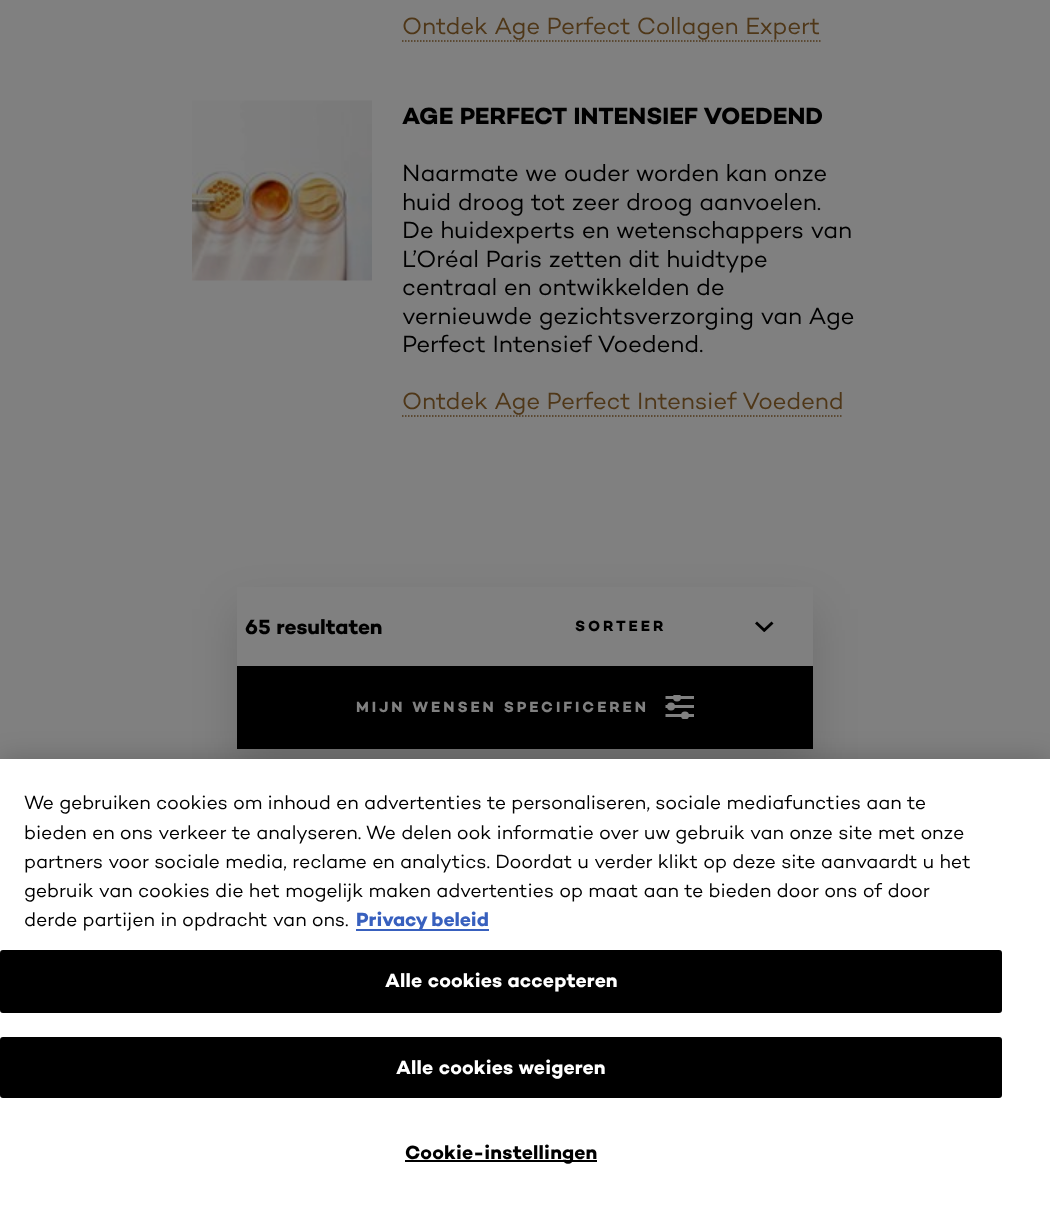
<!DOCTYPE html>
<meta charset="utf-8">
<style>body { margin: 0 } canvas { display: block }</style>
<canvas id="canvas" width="1050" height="1206"></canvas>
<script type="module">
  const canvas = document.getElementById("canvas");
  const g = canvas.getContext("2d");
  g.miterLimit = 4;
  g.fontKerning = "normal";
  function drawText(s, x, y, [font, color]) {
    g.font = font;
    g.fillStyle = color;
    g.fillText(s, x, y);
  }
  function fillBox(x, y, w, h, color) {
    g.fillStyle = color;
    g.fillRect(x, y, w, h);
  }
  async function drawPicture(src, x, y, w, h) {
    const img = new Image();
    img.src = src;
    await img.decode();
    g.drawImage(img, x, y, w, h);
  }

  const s1 = ["24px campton", "#4F3718"];
  const s2 = ["bold 24px campton", "#000000"];
  const s3 = ["24px campton", "#000000"];
  const s4 = ["bold 21px campton", "#000000"];
  const s5 = ["bold 15px campton", "#000000"];
  const s6 = ["bold 15px campton", "#808080"];
  const s7 = ["19.5px campton", "#000000"];
  const s8 = ["bold 19.5px campton", "#3860BE"];
  const s9 = ["bold 19.5px campton", "#FFFFFF"];
  const s10 = ["bold 19.5px campton", "#000000"];

  fillBox(0, 0, 1050, 1206, "#808080");
  drawText("Ontdek Age Perfect Collagen Expert", 402, 34, s1);
  g.beginPath();
  g.moveTo(402, 41);
  g.lineTo(820.5, 41);
  g.strokeStyle = "#4F3718";
  g.lineWidth = 1.5;
  g.setLineDash([1.5, 1.5]);
  g.stroke();
  await drawPicture("pic1.png", 192, 100, 180, 181);
  drawText("AGE PERFECT INTENSIEF VOEDEND", 402, 124, s2);
  drawText("Naarmate we ouder worden kan onze", 402, 181, s3);
  drawText("huid droog tot zeer droog aanvoelen.", 402, 210, s3);
  drawText("De huidexperts en wetenschappers van", 402, 238, s3);
  drawText("L’Oréal Paris zetten dit huidtype", 402, 267, s3);
  drawText("centraal en ontwikkelden de", 402, 295, s3);
  drawText("vernieuwde gezichtsverzorging van Age", 402, 324, s3);
  drawText("Perfect Intensief Voedend.", 402, 352, s3);
  drawText("Ontdek Age Perfect Intensief Voedend", 402, 409, s1);
  g.beginPath();
  g.moveTo(402, 416);
  g.lineTo(843, 416);
  g.stroke();
  g.save();
  g.beginPath();
  g.moveTo(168, 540);
  g.lineTo(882, 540);
  g.lineTo(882, 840);
  g.lineTo(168, 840);
  g.closePath();
  g.moveTo(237, 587);
  g.lineTo(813, 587);
  g.lineTo(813, 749);
  g.lineTo(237, 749);
  g.closePath();
  g.clip("evenodd");
  g.fillStyle = "rgba(0, 0, 0, 0.15)";
  g.filter = "blur(22.5px)";
  g.beginPath();
  g.rect(237, 609, 576, 162);
  g.fill();
  g.filter = "none";
  g.restore();
  drawText("65 resultaten", 245, 634, s4);
  g.letterSpacing = "3px";
  drawText("SORTEER", 575, 631, s5);
  g.beginPath();
  g.moveTo(762.5, 630);
  g.lineTo(771.5, 621.5);
  g.lineTo(773.5, 623.5);
  g.lineTo(764.5, 632);
  g.closePath();
  g.fill();
  g.beginPath();
  g.moveTo(757, 621.5);
  g.lineTo(766, 630);
  g.lineTo(764, 632);
  g.lineTo(755, 623.5);
  g.closePath();
  g.fill();
  fillBox(237, 666, 576, 83, "#000000");
  drawText("MIJN WENSEN SPECIFICEREN", 356, 712, s6);
  g.beginPath();
  g.moveTo(667, 697.5);
  g.lineTo(692.5, 697.5);
  g.moveTo(667, 706.5);
  g.lineTo(692.5, 706.5);
  g.moveTo(667, 715.5);
  g.lineTo(692.5, 715.5);
  g.strokeStyle = "#808080";
  g.lineWidth = 3;
  g.lineCap = "square";
  g.setLineDash([]);
  g.stroke();
  g.save();
  g.beginPath();
  g.rect(665, 695, 30, 24);
  g.clip();
  g.beginPath();
  g.arc(677, 697.5, 4, 0, Math.PI * 2);
  g.fill();
  g.restore();
  g.beginPath();
  g.arc(671, 706.5, 4, 0, Math.PI * 2);
  g.fill();
  g.save();
  g.beginPath();
  g.rect(665, 695, 30, 24);
  g.clip();
  g.beginPath();
  g.arc(685, 715.5, 4, 0, Math.PI * 2);
  g.fill();
  g.restore();
  g.fillStyle = "rgba(0, 0, 0, 0.2)";
  g.filter = "blur(13.5px)";
  g.beginPath();
  g.rect(0, 759, 1050, 447);
  g.fill();
  g.filter = "none";
  fillBox(0, 759, 1050, 447, "#FFFFFF");
  g.letterSpacing = "0px";
  drawText("We gebruiken cookies om inhoud en advertenties te personaliseren, sociale mediafuncties aan te", 24, 809, s7);
  drawText("bieden en ons verkeer te analyseren. We delen ook informatie over uw gebruik van onze site met onze", 24, 839, s7);
  drawText("partners voor sociale media, reclame en analytics. Doordat u verder klikt op deze site aanvaardt u het", 24, 868, s7);
  drawText("gebruik van cookies die het mogelijk maken advertenties op maat aan te bieden door ons of door", 24, 897, s7);
  drawText("derde partijen in opdracht van ons.", 24, 926, s7);
  fillBox(356, 929, 133, 2, "#3860BE");
  drawText("Privacy beleid", 356, 926, s8);
  g.fillStyle = "#000000";
  g.beginPath();
  g.roundRect(1, 951, 1000, 61, 2);
  g.fill();
  g.strokeStyle = "#000000";
  g.lineWidth = 2;
  g.stroke();
  g.letterSpacing = "0.2px";
  drawText("Alle cookies accepteren", 385, 987, s9);
  g.fillStyle = "#000000";
  g.beginPath();
  g.roundRect(1, 1038, 1000, 59, 2);
  g.fill();
  g.stroke();
  drawText("Alle cookies weigeren", 396, 1074, s9);
  fillBox(405, 1160, 192, 2, "#000000");
  drawText("Cookie-instellingen", 405, 1159, s10);
</script>
